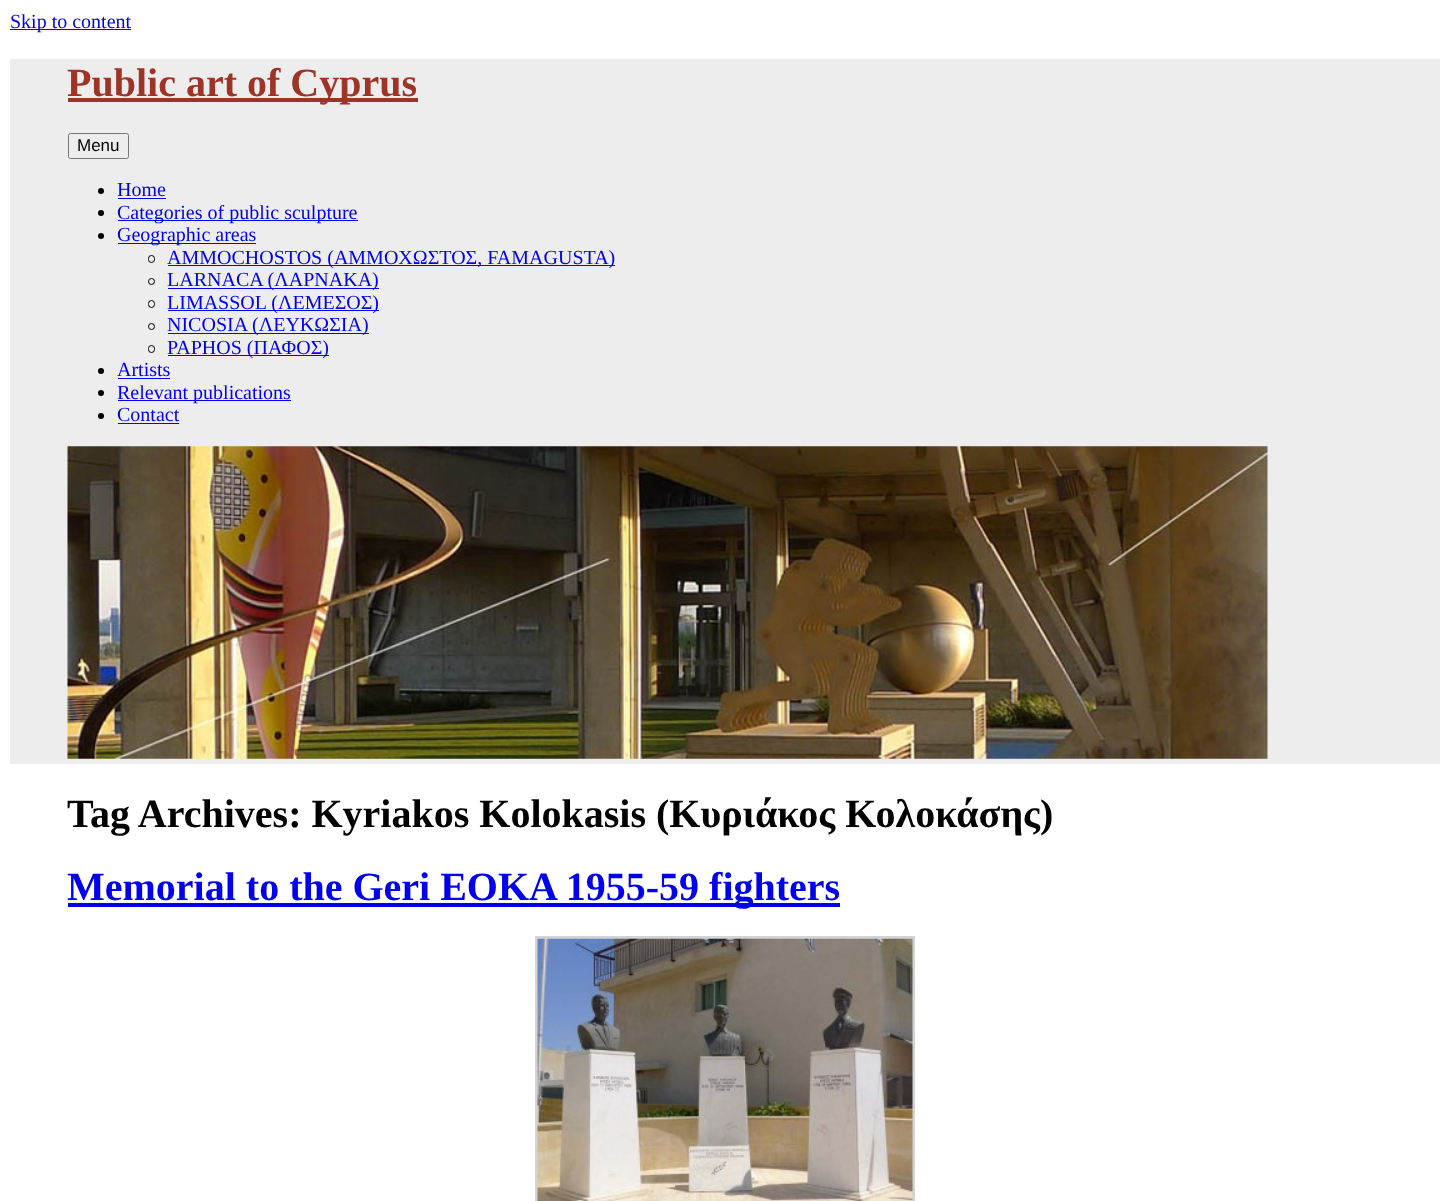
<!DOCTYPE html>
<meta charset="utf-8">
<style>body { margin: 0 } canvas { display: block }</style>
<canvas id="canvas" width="1449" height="1201"></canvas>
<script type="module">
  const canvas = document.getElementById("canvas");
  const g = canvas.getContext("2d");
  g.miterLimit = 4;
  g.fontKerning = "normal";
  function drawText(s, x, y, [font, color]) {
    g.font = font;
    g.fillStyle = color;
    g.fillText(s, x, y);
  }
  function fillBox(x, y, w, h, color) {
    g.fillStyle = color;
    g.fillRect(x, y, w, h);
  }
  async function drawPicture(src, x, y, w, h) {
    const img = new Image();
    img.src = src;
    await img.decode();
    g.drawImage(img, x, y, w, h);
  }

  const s1 = ["20px Liberation Serif", "#0000EE"];
  const s2 = ["bold 40px Liberation Serif", "#9E3327"];
  const s3 = ["17px Liberation Sans", "#000000"];
  const s4 = ["bold 40px Liberation Serif", "#000000"];
  const s5 = ["bold 40px Liberation Serif", "#0000EE"];

  fillBox(0, 0, 1449, 1201, "#FFFFFF");
  fillBox(10, 29, 121, 1, "#0000EE");
  drawText("Skip to content", 10, 28, s1);
  fillBox(10, 59, 1430, 705, "#EDEDED");
  fillBox(68, 98, 350, 4, "#9E3327");
  drawText("Public art of Cyprus", 67, 96, s2);
  g.beginPath();
  g.roundRect(68.5, 133.5, 60, 25, 2);
  g.strokeStyle = "#767676";
  g.stroke();
  drawText("Menu", 77, 151, s3);
  g.beginPath();
  g.arc(101, 191, 3, 0, Math.PI * 2);
  g.fill();
  drawText("Home", 117, 196, s1);
  fillBox(118, 198, 48, 1, "#0000EE");
  g.fillStyle = "#000000";
  g.beginPath();
  g.arc(101, 213, 3, 0, Math.PI * 2);
  g.fill();
  fillBox(118, 220, 240, 1, "#0000EE");
  drawText("Categories of public sculpture", 117, 219, s1);
  g.fillStyle = "#000000";
  g.beginPath();
  g.arc(101, 236, 3, 0, Math.PI * 2);
  g.fill();
  fillBox(118, 243, 138, 1, "#0000EE");
  drawText("Geographic areas", 117, 241, s1);
  g.beginPath();
  g.roundRect(148.5, 255.5, 6, 7, 3);
  g.strokeStyle = "#000000";
  g.stroke();
  fillBox(168, 265, 447, 1, "#0000EE");
  drawText("AΜΜOCHOSTOS (AΜΜΟΧΩΣΤΟΣ, FAMAGUSTA)", 167, 264, s1);
  g.beginPath();
  g.arc(151.5, 281.5, 3, 0, Math.PI * 2);
  g.stroke();
  fillBox(168, 288, 211, 1, "#0000EE");
  drawText("LARNACA (ΛΑΡΝΑΚΑ)", 167, 286, s1);
  g.beginPath();
  g.roundRect(148.5, 300.5, 6, 7, 3);
  g.stroke();
  fillBox(168, 310, 211, 1, "#0000EE");
  drawText("LIMASSOL (ΛΕΜΕΣΟΣ)", 167, 309, s1);
  g.beginPath();
  g.arc(151.5, 326.5, 3, 0, Math.PI * 2);
  g.stroke();
  fillBox(168, 333, 201, 1, "#0000EE");
  drawText("NICOSIA (ΛΕΥΚΩΣΙΑ)", 167, 331, s1);
  g.beginPath();
  g.roundRect(148.5, 345.5, 6, 7, 3);
  g.stroke();
  fillBox(168, 355, 161, 1, "#0000EE");
  drawText("PAPHOS (ΠΑΦΟΣ)", 167, 354, s1);
  g.fillStyle = "#000000";
  g.beginPath();
  g.arc(101, 371, 3, 0, Math.PI * 2);
  g.fill();
  drawText("Artists", 117, 376, s1);
  fillBox(118, 378, 52, 1, "#0000EE");
  g.fillStyle = "#000000";
  g.beginPath();
  g.arc(101, 393, 3, 0, Math.PI * 2);
  g.fill();
  fillBox(118, 400, 173, 1, "#0000EE");
  drawText("Relevant publications", 117, 399, s1);
  g.fillStyle = "#000000";
  g.beginPath();
  g.arc(101, 416, 3, 0, Math.PI * 2);
  g.fill();
  drawText("Contact", 117, 421, s1);
  fillBox(118, 423, 61, 1, "#0000EE");
  await drawPicture("pic1.png", 67, 446, 1201, 313);
  drawText("Tag Archives: Kyriakos Kolokasis (Κυριάκος Κολοκάσης)", 67, 827, s4);
  fillBox(68, 903, 772, 4, "#0000EE");
  drawText("Memorial to the Geri EOKA 1955-59 fighters", 67, 900, s5);
  g.strokeStyle = "#D3D3D3";
  g.lineWidth = 3;
  g.strokeRect(536.5, 937.5, 377, 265);
  await drawPicture("pic2.png", 537, 938, 376, 263);
</script>
